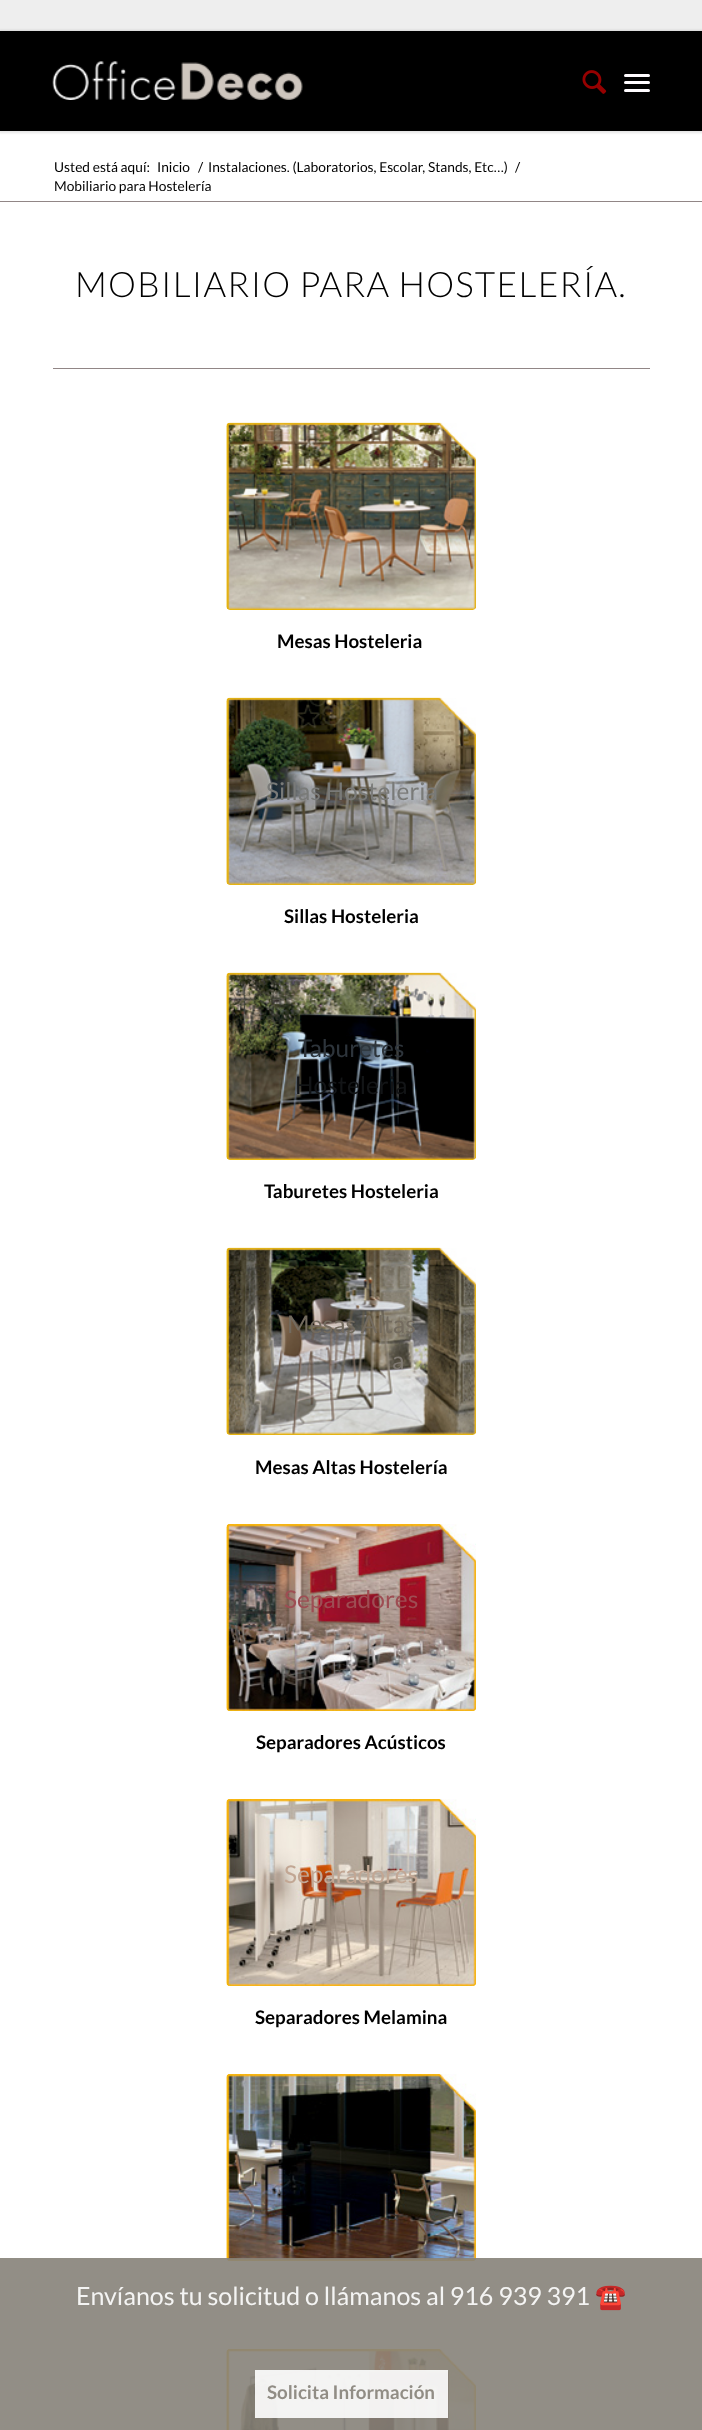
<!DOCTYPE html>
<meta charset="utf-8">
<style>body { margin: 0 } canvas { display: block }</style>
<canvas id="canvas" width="702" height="2430"></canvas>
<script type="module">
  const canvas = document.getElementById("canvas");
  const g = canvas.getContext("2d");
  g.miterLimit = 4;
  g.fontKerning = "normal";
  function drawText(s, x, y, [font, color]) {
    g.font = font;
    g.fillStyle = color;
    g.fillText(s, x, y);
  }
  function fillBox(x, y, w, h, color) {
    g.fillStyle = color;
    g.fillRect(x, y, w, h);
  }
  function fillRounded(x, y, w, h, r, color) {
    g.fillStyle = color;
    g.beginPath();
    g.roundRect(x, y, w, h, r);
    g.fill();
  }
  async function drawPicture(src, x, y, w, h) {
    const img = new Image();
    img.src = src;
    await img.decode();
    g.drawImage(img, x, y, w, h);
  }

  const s1 = ["13.75px Lato", "#000000"];
  const s2 = ["300 35px Lato", "#000000"];
  const s3 = ["bold 18.75px Lato", "#000000"];
  const s4 = ["24.5px Lato", "#797A78"];
  const s5 = ["24.5px Lato", "#2D343B"];
  const s6 = ["24.5px Lato", "#131517"];
  const s7 = ["24.5px Lato", "#736B5F"];
  const s8 = ["24.5px Lato", "#7F7972"];
  const s9 = ["24.5px Lato", "#9E4D53"];
  const s10 = ["24.5px Lato", "#C2A794"];
  const s11 = ["25px Lato", "#F4F4F3"];
  const s12 = ["25px Noto Color Emoji", "#FFFFFF"];
  const s13 = ["bold 18.75px Lato", "#918D85"];

  fillBox(0, 0, 702, 2430, "#EEEEEE");
  fillBox(0, 131, 702, 70, "#FFFFFF");
  g.fillStyle = "rgba(0, 0, 0, 0.1)";
  g.filter = "blur(1px)";
  g.beginPath();
  g.rect(-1, 30, 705, 103);
  g.fill();
  g.filter = "none";
  fillBox(0, 31, 702, 100, "#000000");
  await drawPicture("pic1.png", 52, 61, 251, 39);
  await drawPicture("pic2.png", 582, 70, 25, 24);
  fillRounded(624, 81, 26, 3, 1.5, "#FFFCFF");
  fillRounded(624, 74, 26, 3, 1.5, "#FFFCFF");
  fillRounded(624, 89, 26, 3, 1.5, "#FFFCFF");
  drawText("Usted está aquí:", 54, 172, s1);
  drawText("Inicio", 157, 172, s1);
  drawText("/", 198, 172, s1);
  drawText("Instalaciones. (Laboratorios, Escolar, Stands, Etc…)", 208, 172, s1);
  drawText("/", 515, 172, s1);
  drawText("Mobiliario para Hostelería", 54, 191, s1);
  fillBox(0, 202, 702, 2228, "#FFFFFF");
  fillBox(0, 201, 702, 1, "#918686");
  g.letterSpacing = "1.25px";
  drawText("MOBILIARIO PARA HOSTELERÍA.", 75, 297, s2);
  fillBox(53, 368, 597, 1, "#918686");
  await drawPicture("pic3.png", 226, 422, 250, 188);
  g.letterSpacing = "0px";
  drawText("Mesas Hosteleria", 277, 648, s3);
  await drawPicture("pic4.png", 226, 697, 250, 188);
  drawText("Sillas Hosteleria", 266, 800, s4);
  drawText("Sillas Hosteleria", 284, 923, s3);
  await drawPicture("pic5.png", 226, 972, 250, 188);
  drawText("Taburetes", 298, 1057, s5);
  drawText("Hosteleria", 295, 1094, s6);
  drawText("Taburetes Hosteleria", 264, 1198, s3);
  await drawPicture("pic6.png", 226, 1247, 250, 188);
  drawText("Mesas Altas", 287, 1333, s7);
  drawText("a", 392, 1369, s8);
  drawText("Mesas Altas Hostelería", 255, 1474, s3);
  await drawPicture("pic7.png", 226, 1524, 250, 187);
  drawText("Separadores", 284, 1608, s9);
  drawText("Separadores Acústicos", 256, 1749, s3);
  await drawPicture("pic8.png", 226, 1799, 250, 187);
  drawText("Separadores", 284, 1883, s10);
  drawText("Separadores Melamina", 255, 2024, s3);
  await drawPicture("pic9.png", 226, 2074, 250, 187);
  await drawPicture("pic10.png", 226, 2349, 250, 81);
  fillBox(0, 2258, 702, 172, "rgba(134, 130, 121, 0.9)");
  drawText("Envíanos tu solicitud o llámanos al 916 939 391", 76, 2305, s11);
  drawText("☎️", 595, 2305, s12);
  fillBox(255, 2370, 193, 48, "rgba(255, 255, 255, 0.9)");
  drawText("Solicita Información", 267, 2399, s13);
</script>
